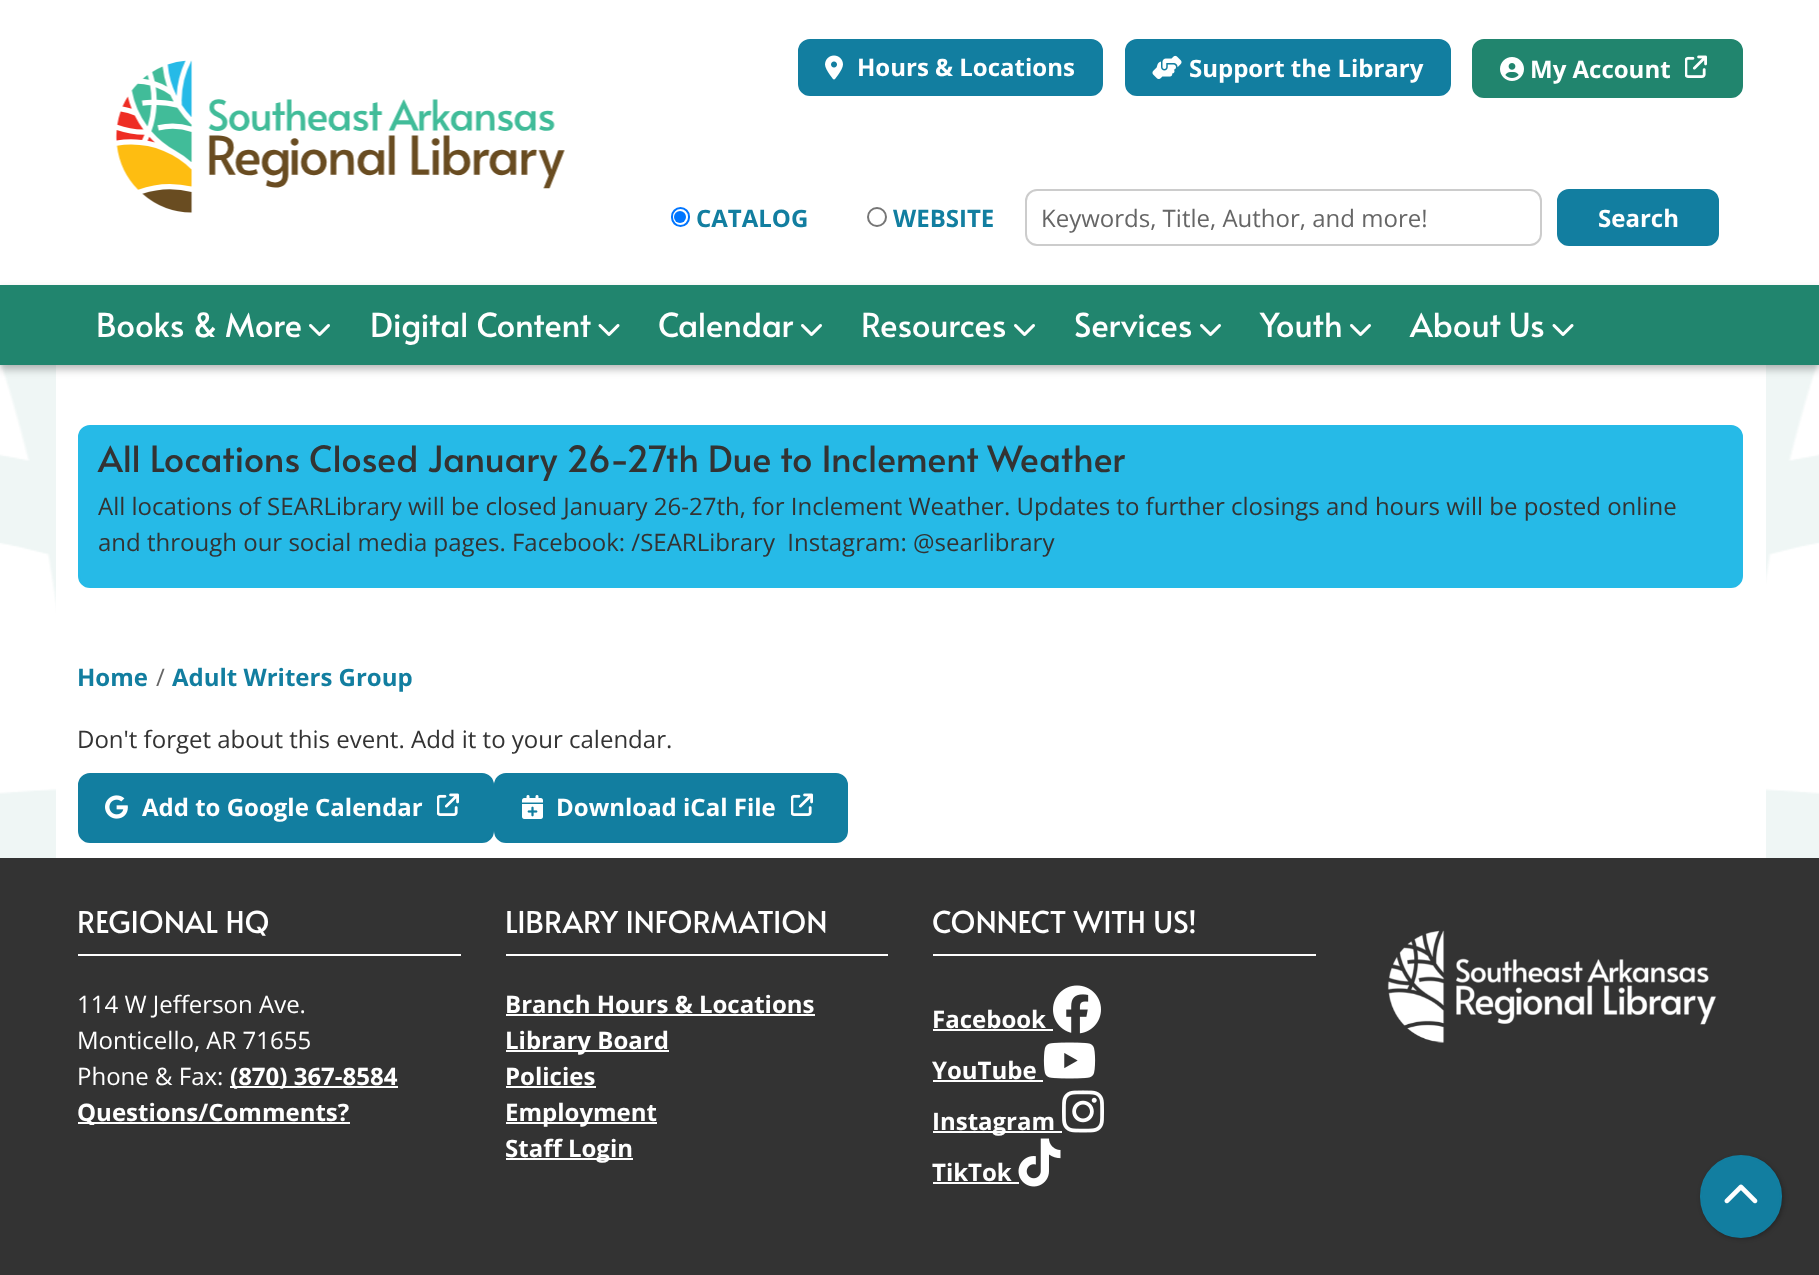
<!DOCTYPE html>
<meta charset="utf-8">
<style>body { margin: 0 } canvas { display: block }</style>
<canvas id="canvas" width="1819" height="1275"></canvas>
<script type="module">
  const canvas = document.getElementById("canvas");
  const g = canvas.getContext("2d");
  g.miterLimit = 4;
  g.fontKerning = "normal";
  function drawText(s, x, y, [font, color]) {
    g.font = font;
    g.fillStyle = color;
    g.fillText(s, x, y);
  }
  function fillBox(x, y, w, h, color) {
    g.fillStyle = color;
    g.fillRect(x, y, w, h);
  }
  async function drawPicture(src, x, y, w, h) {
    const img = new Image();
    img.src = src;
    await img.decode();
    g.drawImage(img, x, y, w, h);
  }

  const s1 = ["bold 24px Open Sans", "#FFFFFF"];
  const s2 = ["bold 24px Open Sans", "#127EA0"];
  const s3 = ["24px Open Sans", "#666666"];
  const s4 = ["33px Alata", "#FFFFFF"];
  const s5 = ["36px Alata", "#333333"];
  const s6 = ["24px Open Sans", "#333333"];
  const s7 = ["30px Alata", "#FFFFFF"];
  const s8 = ["24px Open Sans", "#FFFFFF"];

  fillBox(0, 0, 1819, 1275, "#FFFFFF");
  await drawPicture("pic1.png", 115, 60, 450, 153);
  g.fillStyle = "#127EA0";
  g.beginPath();
  g.roundRect(799, 40, 303, 55, 11);
  g.fill();
  g.strokeStyle = "#127EA0";
  g.lineWidth = 2;
  g.stroke();
  await drawPicture("pic2.png", 825, 55, 18, 25);
  drawText("Hours & Locations", 857, 76, s1);
  g.fillStyle = "#127EA0";
  g.beginPath();
  g.roundRect(1126, 40, 324, 55, 11);
  g.fill();
  g.stroke();
  await drawPicture("pic3.png", 1152, 55, 30, 24);
  drawText("Support the Library", 1189, 77, s1);
  g.fillStyle = "#21856E";
  g.beginPath();
  g.roundRect(1473, 40, 269, 57, 11);
  g.fill();
  g.strokeStyle = "#21856E";
  g.stroke();
  await drawPicture("pic4.png", 1500, 57, 24, 24);
  drawText("My Account", 1530, 78, s1);
  await drawPicture("pic5.png", 1685, 55, 22, 23);
  g.beginPath();
  g.roundRect(672, 208, 17, 18, 8.5);
  g.strokeStyle = "#0075FF";
  g.stroke();
  g.fillStyle = "#0075FF";
  g.beginPath();
  g.arc(680, 217, 6, 0, Math.PI * 2);
  g.fill();
  drawText("CATALOG", 696, 227, s2);
  g.beginPath();
  g.arc(877, 217, 9, 0, Math.PI * 2);
  g.strokeStyle = "#767676";
  g.stroke();
  drawText("WEBSITE", 893, 227, s2);
  g.beginPath();
  g.roundRect(1026, 190, 515, 55, 11);
  g.strokeStyle = "#CCCCCC";
  g.stroke();
  drawText("Keywords, Title, Author, and more!", 1041, 227, s3);
  g.fillStyle = "#127EA0";
  g.beginPath();
  g.roundRect(1558, 190, 160, 55, 11);
  g.fill();
  g.strokeStyle = "#127EA0";
  g.stroke();
  drawText("Search", 1598, 227, s1);
  await drawPicture("pic8.png", 0, 365, 1819, 493);
  fillBox(56, 365, 1710, 493, "#FFFFFF");
  g.fillStyle = "rgba(0, 0, 0, 0.29)";
  g.filter = "blur(4.5px)";
  g.beginPath();
  g.rect(0, 290, 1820, 79);
  g.fill();
  g.filter = "none";
  fillBox(0, 285, 1819, 80, "#21856E");
  drawText("Books & More", 96, 337, s4);
  await drawPicture("pic6.png", 309, 324, 21, 12);
  drawText("Digital Content", 370, 337, s4);
  await drawPicture("pic7.png", 598, 324, 22, 12);
  drawText("Calendar", 658, 337, s4);
  await drawPicture("pic6.png", 801, 324, 21, 12);
  drawText("Resources", 861, 337, s4);
  await drawPicture("pic6.png", 1014, 324, 21, 12);
  drawText("Services", 1074, 337, s4);
  await drawPicture("pic6.png", 1200, 324, 21, 12);
  drawText("Youth", 1260, 337, s4);
  await drawPicture("pic6.png", 1350, 324, 21, 12);
  drawText("About Us", 1410, 337, s4);
  await drawPicture("pic7.png", 1552, 324, 22, 12);
  g.fillStyle = "#26BAE7";
  g.beginPath();
  g.roundRect(79, 426, 1663, 161, 11);
  g.fill();
  g.strokeStyle = "#26BAE7";
  g.stroke();
  drawText("All Locations Closed January 26-27th Due to Inclement Weather", 98, 472, s5);
  drawText("All locations of SEARLibrary will be closed January 26-27th, for Inclement Weather. Updates to further closings and hours will be posted online", 98, 515, s6);
  drawText("and through our social media pages. Facebook: /SEARLibrary  Instagram: @searlibrary", 98, 551, s6);
  drawText("Home", 77, 686, s2);
  drawText("/", 156, 686, s3);
  drawText("Adult Writers Group", 172, 686, s2);
  drawText("Don't forget about this event. Add it to your calendar.", 77, 748, s6);
  g.fillStyle = "#127EA0";
  g.beginPath();
  g.roundRect(79, 774, 414, 68, 11);
  g.fill();
  g.strokeStyle = "#127EA0";
  g.stroke();
  await drawPicture("pic9.png", 105, 795, 23, 24);
  drawText("Add to Google Calendar", 142, 816, s1);
  await drawPicture("pic10.png", 437, 793, 22, 23);
  g.fillStyle = "#127EA0";
  g.beginPath();
  g.roundRect(495, 774, 352, 68, 11);
  g.fill();
  g.stroke();
  await drawPicture("pic11.png", 522, 795, 21, 24);
  drawText("Download iCal File", 556, 816, s1);
  await drawPicture("pic10.png", 791, 793, 22, 23);
  fillBox(0, 858, 1819, 417, "#333333");
  fillBox(78, 954, 383, 2, "#FFFFFF");
  drawText("REGIONAL HQ", 77, 933, s7);
  drawText("114 W Jefferson Ave.", 77, 1013, s8);
  drawText("Monticello, AR 71655", 77, 1049, s8);
  drawText("Phone & Fax:", 77, 1085, s8);
  fillBox(230, 1086, 168, 2, "#FFFFFF");
  drawText("(870) 367-8584", 230, 1085, s1);
  fillBox(78, 1122, 272, 2, "#FFFFFF");
  drawText("Questions/Comments?", 77, 1121, s1);
  fillBox(506, 954, 382, 2, "#FFFFFF");
  drawText("LIBRARY INFORMATION", 505, 933, s7);
  drawText("Branch Hours & Locations", 505, 1013, s1);
  fillBox(506, 1014, 309, 2, "#FFFFFF");
  fillBox(506, 1050, 163, 2, "#FFFFFF");
  drawText("Library Board", 505, 1049, s1);
  drawText("Policies", 505, 1085, s1);
  fillBox(506, 1086, 90, 2, "#FFFFFF");
  fillBox(506, 1122, 151, 2, "#FFFFFF");
  drawText("Employment", 505, 1121, s1);
  fillBox(506, 1158, 127, 2, "#FFFFFF");
  drawText("Staff Login", 505, 1157, s1);
  fillBox(933, 954, 383, 2, "#FFFFFF");
  drawText("CONNECT WITH US!", 932, 933, s7);
  drawText("Facebook", 932, 1028, s1);
  fillBox(933, 1029, 120, 2, "#FFFFFF");
  await drawPicture("pic12.png", 1053, 985, 48, 49);
  drawText("YouTube", 932, 1079, s1);
  fillBox(933, 1080, 110, 2, "#FFFFFF");
  await drawPicture("pic13.png", 1043, 1042, 53, 37);
  fillBox(933, 1131, 129, 2, "#FFFFFF");
  drawText("Instagram", 932, 1130, s1);
  await drawPicture("pic14.png", 1062, 1090, 42, 43);
  drawText("TikTok", 932, 1181, s1);
  fillBox(933, 1182, 86, 2, "#FFFFFF");
  await drawPicture("pic15.png", 1018, 1138, 43, 49);
  await drawPicture("pic16.png", 1387, 930, 330, 113);
  g.fillStyle = "rgba(0, 0, 0, 0.25)";
  g.filter = "blur(2px)";
  g.beginPath();
  g.roundRect(1701, 1157, 83, 82, 41);
  g.fill();
  g.filter = "none";
  g.fillStyle = "#127EA0";
  g.beginPath();
  g.roundRect(1701, 1156, 80, 81, 40);
  g.fill();
  g.stroke();
  await drawPicture("pic17.png", 1724, 1184, 34, 20);
</script>
